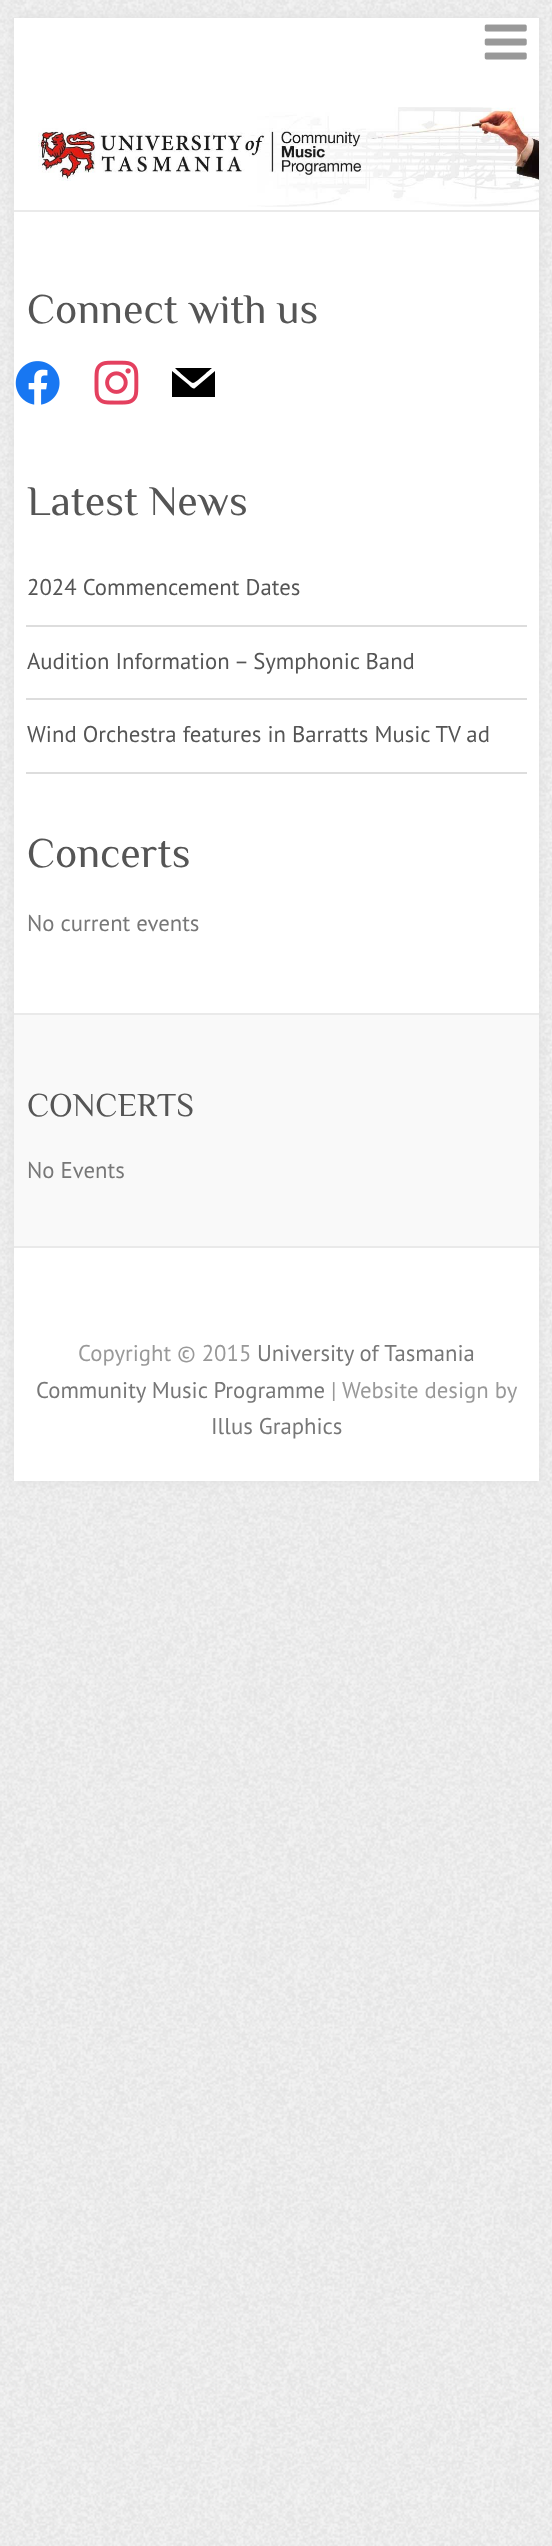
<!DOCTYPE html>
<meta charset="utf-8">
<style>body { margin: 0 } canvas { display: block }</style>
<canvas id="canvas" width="552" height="2546"></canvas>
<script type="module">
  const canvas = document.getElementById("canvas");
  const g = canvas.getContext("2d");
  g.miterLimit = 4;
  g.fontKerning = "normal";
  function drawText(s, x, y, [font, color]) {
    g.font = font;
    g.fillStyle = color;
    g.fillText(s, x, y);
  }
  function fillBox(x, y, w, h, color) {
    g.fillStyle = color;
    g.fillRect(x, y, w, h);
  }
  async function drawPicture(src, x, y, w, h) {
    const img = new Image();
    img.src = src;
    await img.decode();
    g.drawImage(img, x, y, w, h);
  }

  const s1 = ["42px Philosopher", "#555555"];
  const s2 = ["22.75px PT Sans", "#555555"];
  const s3 = ["22.75px PT Sans", "#777777"];
  const s4 = ["33.25px Philosopher", "#555555"];
  const s5 = ["22.75px PT Sans", "#999999"];

  fillBox(0, 0, 552, 2546, "#FFFFFF");
  await drawPicture("pic1.png", 0, 0, 552, 2546);
  g.fillStyle = "#DDDDDD";
  g.filter = "blur(4.5px)";
  g.beginPath();
  g.rect(14, 18, 525, 1463);
  g.fill();
  g.filter = "none";
  fillBox(14, 18, 525, 1463, "#FFFFFF");
  await drawPicture("pic2.png", 484, 24, 43, 36);
  await drawPicture("pic3.png", 38, 107, 501, 100);
  fillBox(14, 210, 525, 2, "#EAEAEA");
  drawText("Connect with us", 27, 323, s1);
  await drawPicture("pic4.png", 15, 361, 45, 44);
  await drawPicture("pic5.png", 94, 360, 45, 45);
  g.fillStyle = "#000000";
  g.beginPath();
  g.moveTo(195, 388);
  g.bezierCurveTo(193, 390, 190, 386, 189, 385);
  g.lineTo(172, 371);
  g.lineTo(172, 397);
  g.lineTo(215, 397);
  g.lineTo(215, 371);
  g.closePath();
  g.moveTo(193, 383);
  g.bezierCurveTo(196, 383, 209, 370, 212, 368);
  g.lineTo(175, 368);
  g.bezierCurveTo(177, 370, 191, 383, 193, 383);
  g.closePath();
  g.fill();
  drawText("Latest News", 27, 515, s1);
  fillBox(26, 625, 501, 2, "#DDDDDD");
  drawText("2024 Commencement Dates", 27, 595, s2);
  fillBox(26, 698, 501, 2, "#DDDDDD");
  drawText("Audition Information – Symphonic Band", 27, 669, s2);
  fillBox(26, 772, 501, 2, "#DDDDDD");
  drawText("Wind Orchestra features in Barratts Music TV ad", 27, 742, s2);
  drawText("Concerts", 27, 867, s1);
  drawText("No current events", 27, 931, s3);
  fillBox(14, 1015, 525, 231, "#F9F9F9");
  fillBox(14, 1013, 525, 2, "#EAEAEA");
  drawText("CONCERTS", 27, 1116, s4);
  drawText("No Events", 27, 1178, s3);
  fillBox(14, 1246, 525, 2, "#EAEAEA");
  drawText("Copyright © 2015", 78, 1361, s5);
  drawText("University of Tasmania", 257, 1361, s3);
  drawText("Community Music Programme", 36, 1398, s3);
  drawText("| Website design by", 331, 1398, s5);
  drawText("Illus Graphics", 211, 1434, s3);
</script>
